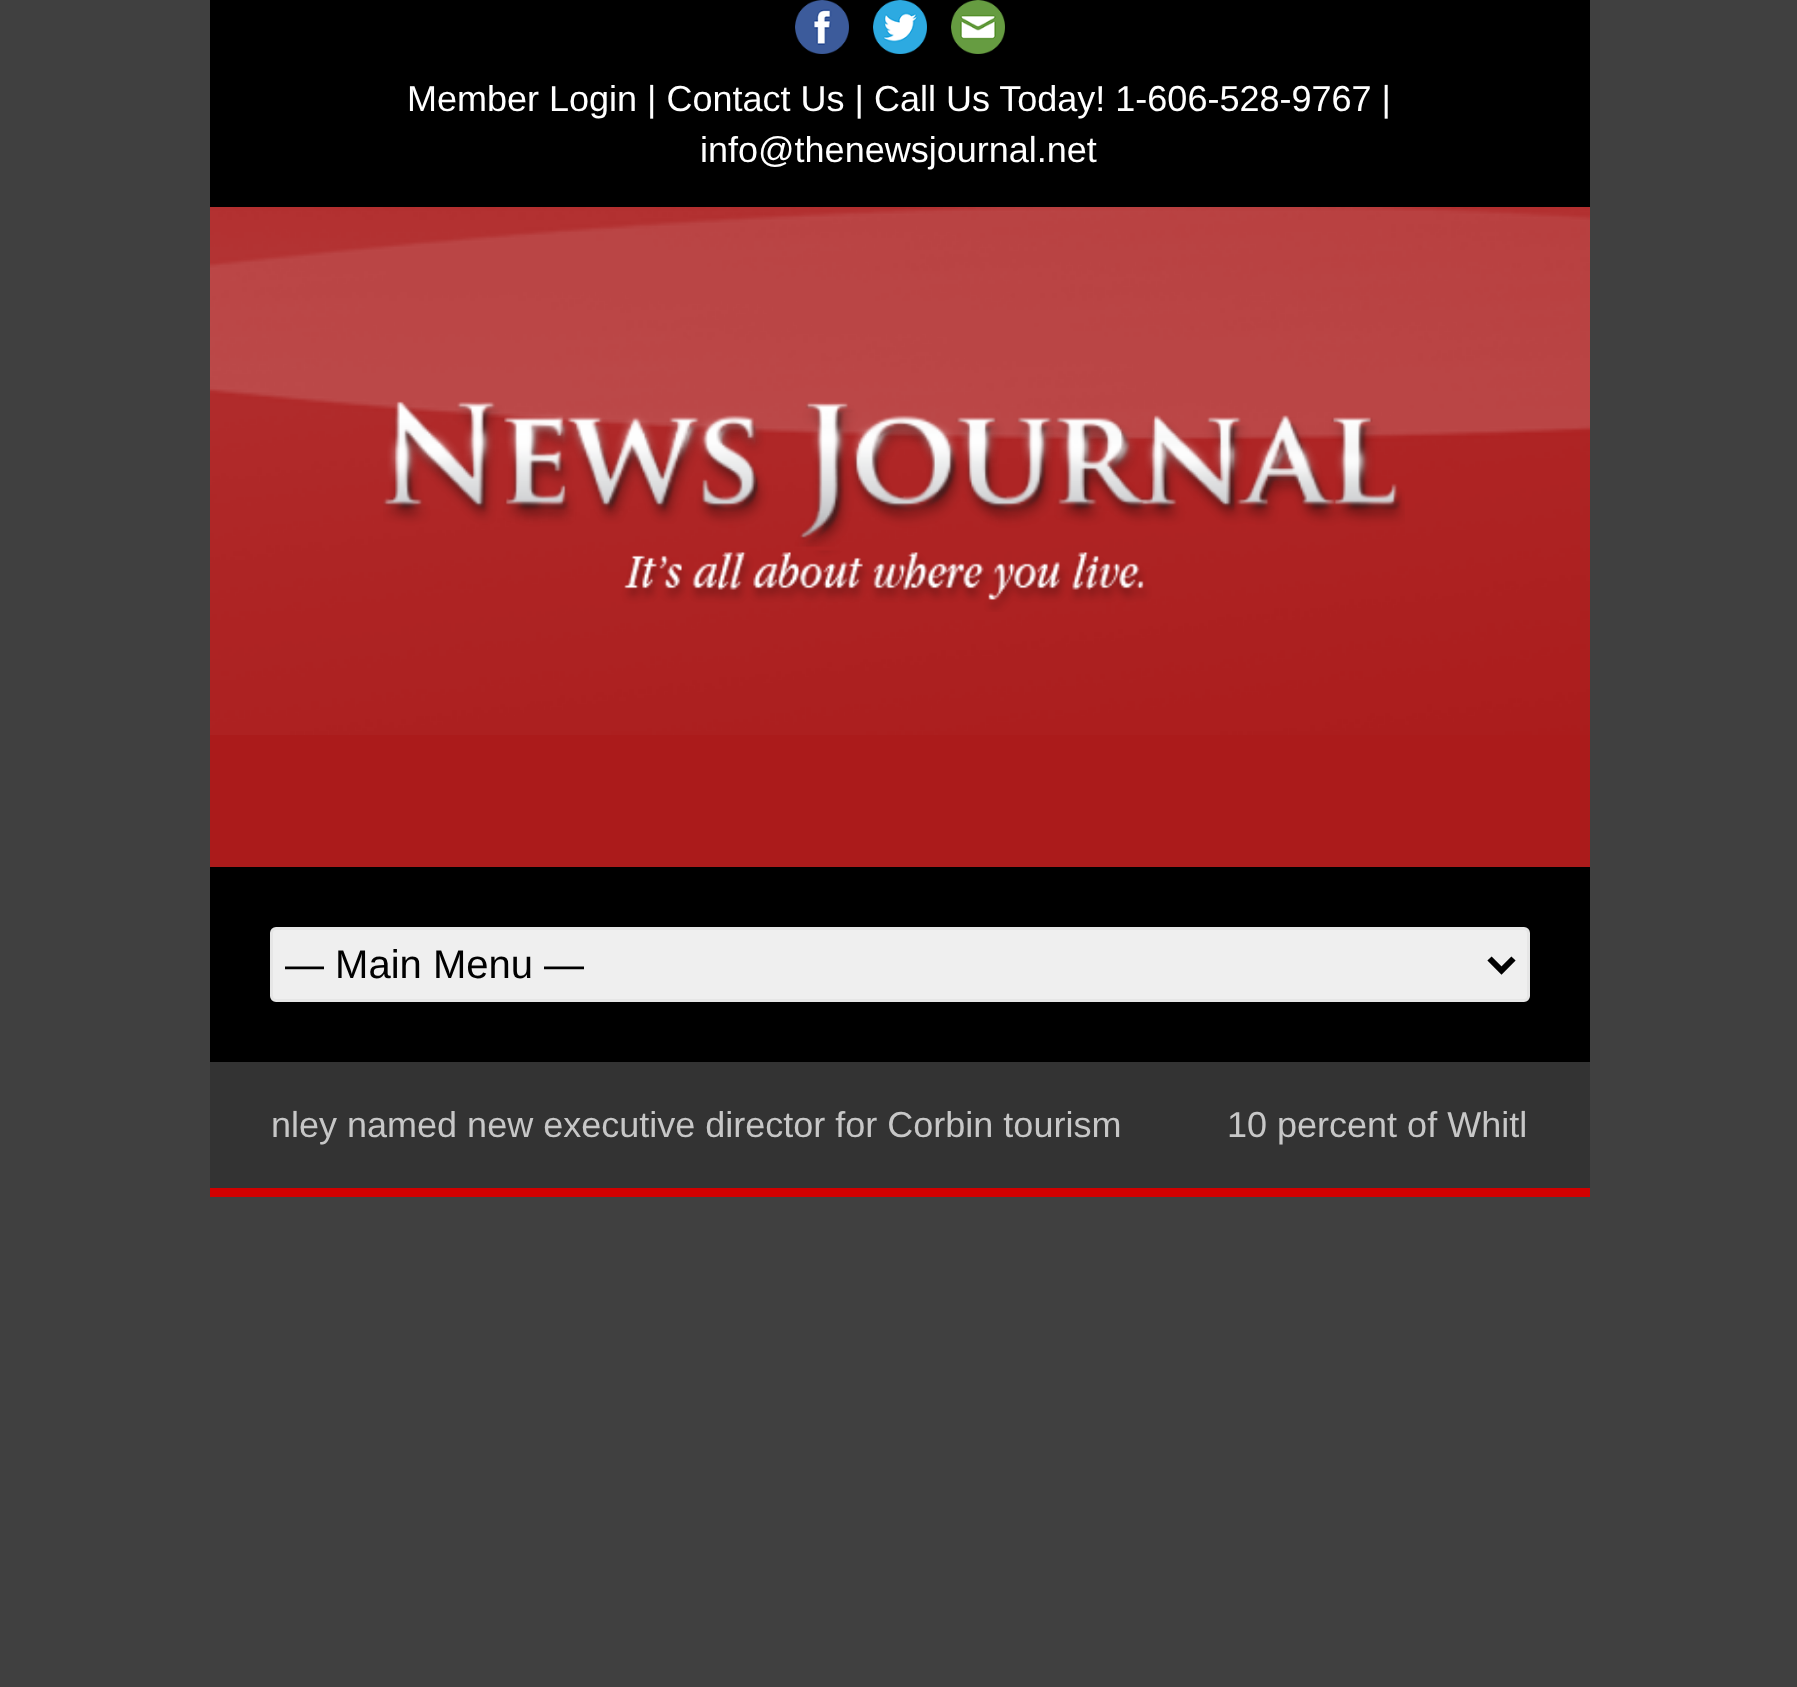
<!DOCTYPE html>
<meta charset="utf-8">
<style>body { margin: 0 } canvas { display: block }</style>
<canvas id="canvas" width="1797" height="1687"></canvas>
<script type="module">
  const canvas = document.getElementById("canvas");
  const g = canvas.getContext("2d");
  g.miterLimit = 4;
  g.fontKerning = "normal";
  function drawText(s, x, y, [font, color]) {
    g.font = font;
    g.fillStyle = color;
    g.fillText(s, x, y);
  }
  function fillBox(x, y, w, h, color) {
    g.fillStyle = color;
    g.fillRect(x, y, w, h);
  }
  async function drawPicture(src, x, y, w, h) {
    const img = new Image();
    img.src = src;
    await img.decode();
    g.drawImage(img, x, y, w, h);
  }

  const s1 = ["36px Liberation Sans", "#FFFFFF"];
  const s2 = ["40px Liberation Sans", "#000000"];
  const s3 = ["36px Liberation Sans", "#C7C7C7"];

  fillBox(0, 0, 1797, 1687, "#404040");
  fillBox(210, 0, 1380, 207, "#000000");
  await drawPicture("pic1.png", 795, 0, 54, 54);
  await drawPicture("pic2.png", 873, 0, 54, 54);
  await drawPicture("pic3.png", 951, 0, 54, 54);
  drawText("Member Login | Contact Us | Call Us Today! 1-606-528-9767 |", 407, 111, s1);
  drawText("info@thenewsjournal.net", 700, 162, s1);
  fillBox(210, 207, 1380, 660, "#AB1B1B");
  await drawPicture("pic4.png", 210, 207, 1380, 528);
  await drawPicture("pic5.png", 383, 401, 1022, 211);
  fillBox(210, 867, 1380, 195, "#000000");
  g.fillStyle = "#EFEFEF";
  g.beginPath();
  g.roundRect(271.5, 928.5, 1257, 72, 4.5);
  g.fill();
  g.strokeStyle = "#E6E6E6";
  g.lineWidth = 3;
  g.stroke();
  g.beginPath();
  g.moveTo(1489.5, 958.5);
  g.lineTo(1501.5, 970.5);
  g.lineTo(1513.5, 958.5);
  g.strokeStyle = "#000000";
  g.lineWidth = 6;
  g.stroke();
  g.save();
  g.beginPath();
  g.rect(285, 939, 1194, 51);
  g.clip();
  drawText("— Main Menu —", 284, 978, s2);
  g.restore();
  fillBox(210, 1062, 1380, 126, "#333333");
  fillBox(210, 1188, 1380, 9, "#D10000");
  drawText("nley named new executive director for Corbin tourism", 271, 1137, s3);
  drawText("10 percent of Whitl", 1227, 1137, s3);
</script>
